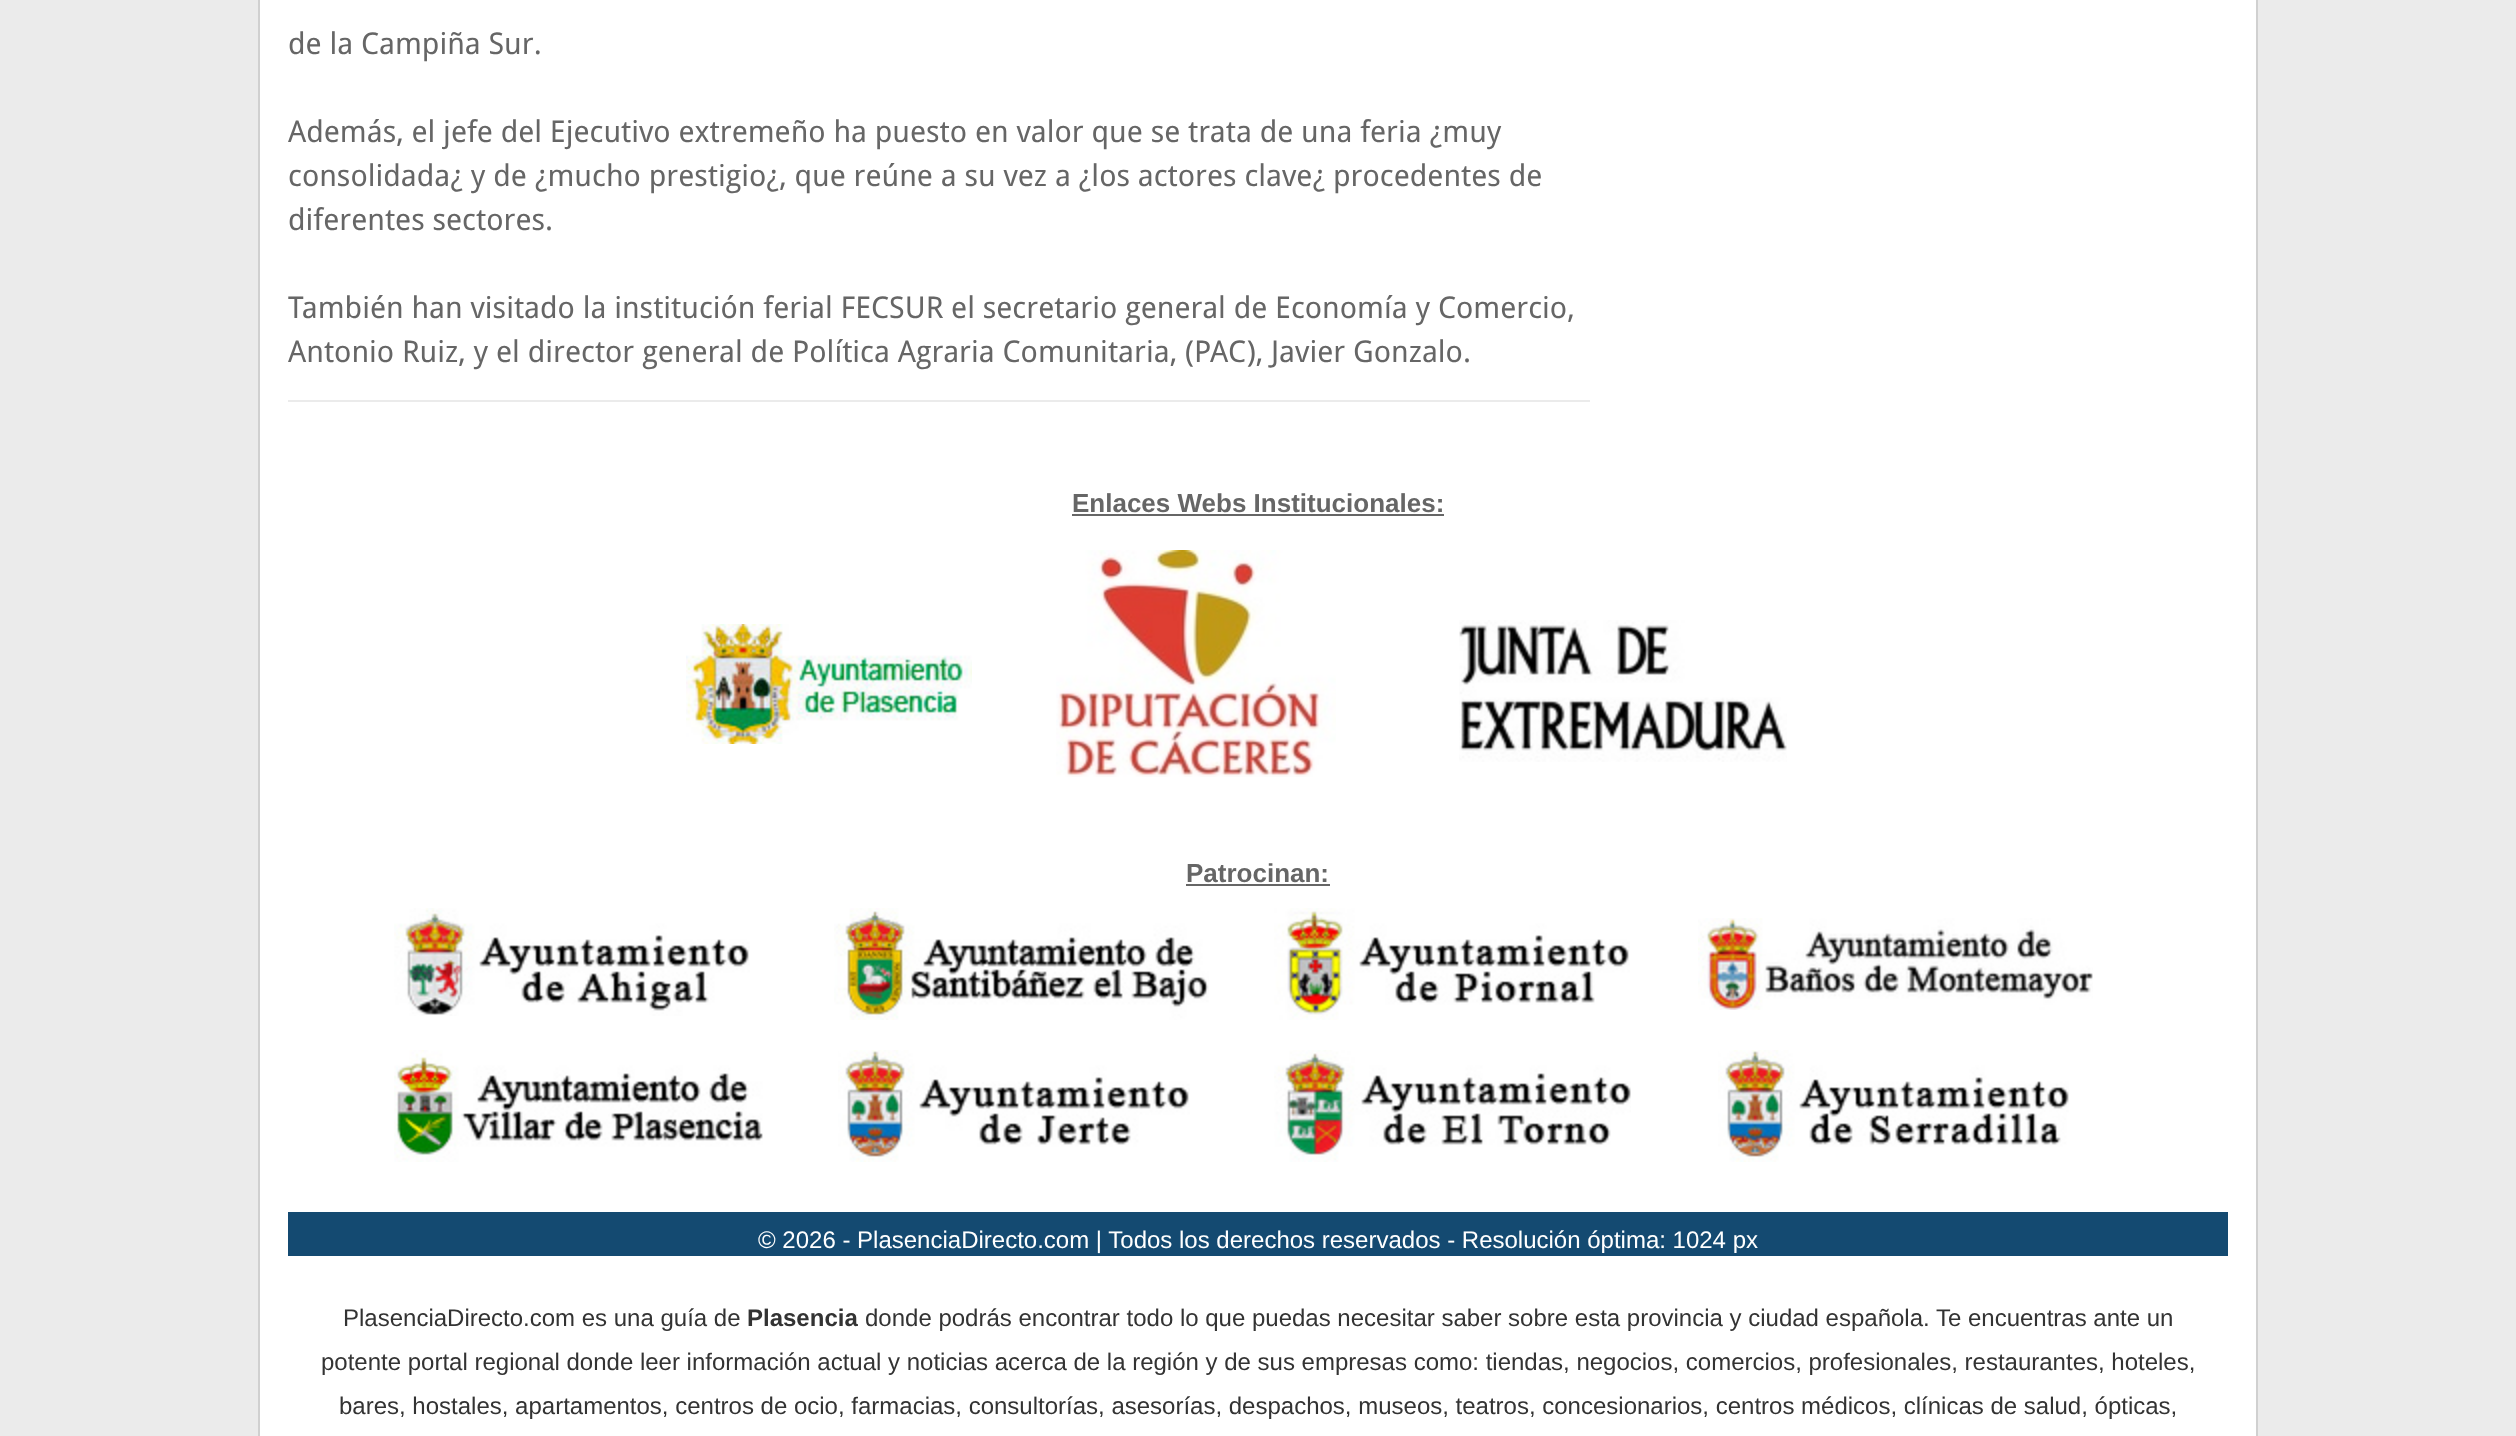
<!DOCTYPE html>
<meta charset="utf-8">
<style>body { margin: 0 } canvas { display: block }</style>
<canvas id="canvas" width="2516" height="1436"></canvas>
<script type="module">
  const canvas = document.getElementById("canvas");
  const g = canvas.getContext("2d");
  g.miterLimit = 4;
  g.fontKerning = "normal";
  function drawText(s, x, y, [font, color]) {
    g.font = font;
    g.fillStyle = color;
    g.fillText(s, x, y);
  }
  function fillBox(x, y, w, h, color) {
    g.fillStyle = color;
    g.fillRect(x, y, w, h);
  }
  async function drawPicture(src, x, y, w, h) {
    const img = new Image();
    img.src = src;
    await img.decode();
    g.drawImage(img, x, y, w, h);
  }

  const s1 = ["30px Droid Sans", "#666666"];
  const s2 = ["bold 26px Liberation Sans", "#666666"];
  const s3 = ["24px Liberation Sans", "#FFFFFF"];
  const s4 = ["24px Liberation Sans", "#333333"];
  const s5 = ["bold 24px Liberation Sans", "#333333"];

  fillBox(0, 0, 2516, 1436, "#EBEBEB");
  fillBox(260, 0, 1996, 1436, "#FFFFFF");
  fillBox(2256, 0, 2, 1436, "#D0D0D0");
  fillBox(258, 0, 2, 1436, "#D0D0D0");
  drawText("de la Campiña Sur.", 288, 54, s1);
  drawText("Además, el jefe del Ejecutivo extremeño ha puesto en valor que se trata de una feria ¿muy", 288, 142, s1);
  drawText("consolidada¿ y de ¿mucho prestigio¿, que reúne a su vez a ¿los actores clave¿ procedentes de", 288, 186, s1);
  drawText("diferentes sectores.", 288, 230, s1);
  drawText("También han visitado la institución ferial FECSUR el secretario general de Economía y Comercio,", 288, 318, s1);
  drawText("Antonio Ruiz, y el director general de Política Agraria Comunitaria, (PAC), Javier Gonzalo.", 288, 362, s1);
  fillBox(288, 400, 1302, 2, "#EBEBEB");
  drawText("Enlaces Webs Institucionales:", 1072, 512, s2);
  fillBox(1072, 514, 372, 2, "#666666");
  await drawPicture("pic1.png", 686, 624, 286, 120);
  await drawPicture("pic2.png", 1056, 550, 280, 227);
  await drawPicture("pic3.png", 1459, 620, 328, 142);
  drawText("Patrocinan:", 1186, 882, s2);
  fillBox(1186, 884, 144, 2, "#666666");
  await drawPicture("pic4.png", 394, 908, 356, 108);
  await drawPicture("pic5.png", 834, 908, 375, 112);
  await drawPicture("pic6.png", 1274, 908, 356, 112);
  await drawPicture("pic7.png", 1698, 918, 395, 92);
  await drawPicture("pic8.png", 394, 1050, 369, 112);
  await drawPicture("pic9.png", 838, 1050, 352, 112);
  await drawPicture("pic10.png", 1274, 1050, 357, 112);
  await drawPicture("pic11.png", 1718, 1050, 351, 112);
  fillBox(288, 1212, 1940, 44, "#144A71");
  drawText("© 2026 - PlasenciaDirecto.com | Todos los derechos reservados - Resolución óptima: 1024 px", 758, 1248, s3);
  drawText("PlasenciaDirecto.com es una guía de", 343, 1326, s4);
  drawText("Plasencia", 747, 1326, s5);
  drawText("donde podrás encontrar todo lo que puedas necesitar saber sobre esta provincia y ciudad española. Te encuentras ante un", 865, 1326, s4);
  drawText("potente portal regional donde leer información actual y noticias acerca de la región y de sus empresas como: tiendas, negocios, comercios, profesionales, restaurantes, hoteles,", 321, 1370, s4);
  drawText("bares, hostales, apartamentos, centros de ocio, farmacias, consultorías, asesorías, despachos, museos, teatros, concesionarios, centros médicos, clínicas de salud, ópticas,", 339, 1414, s4);
</script>
